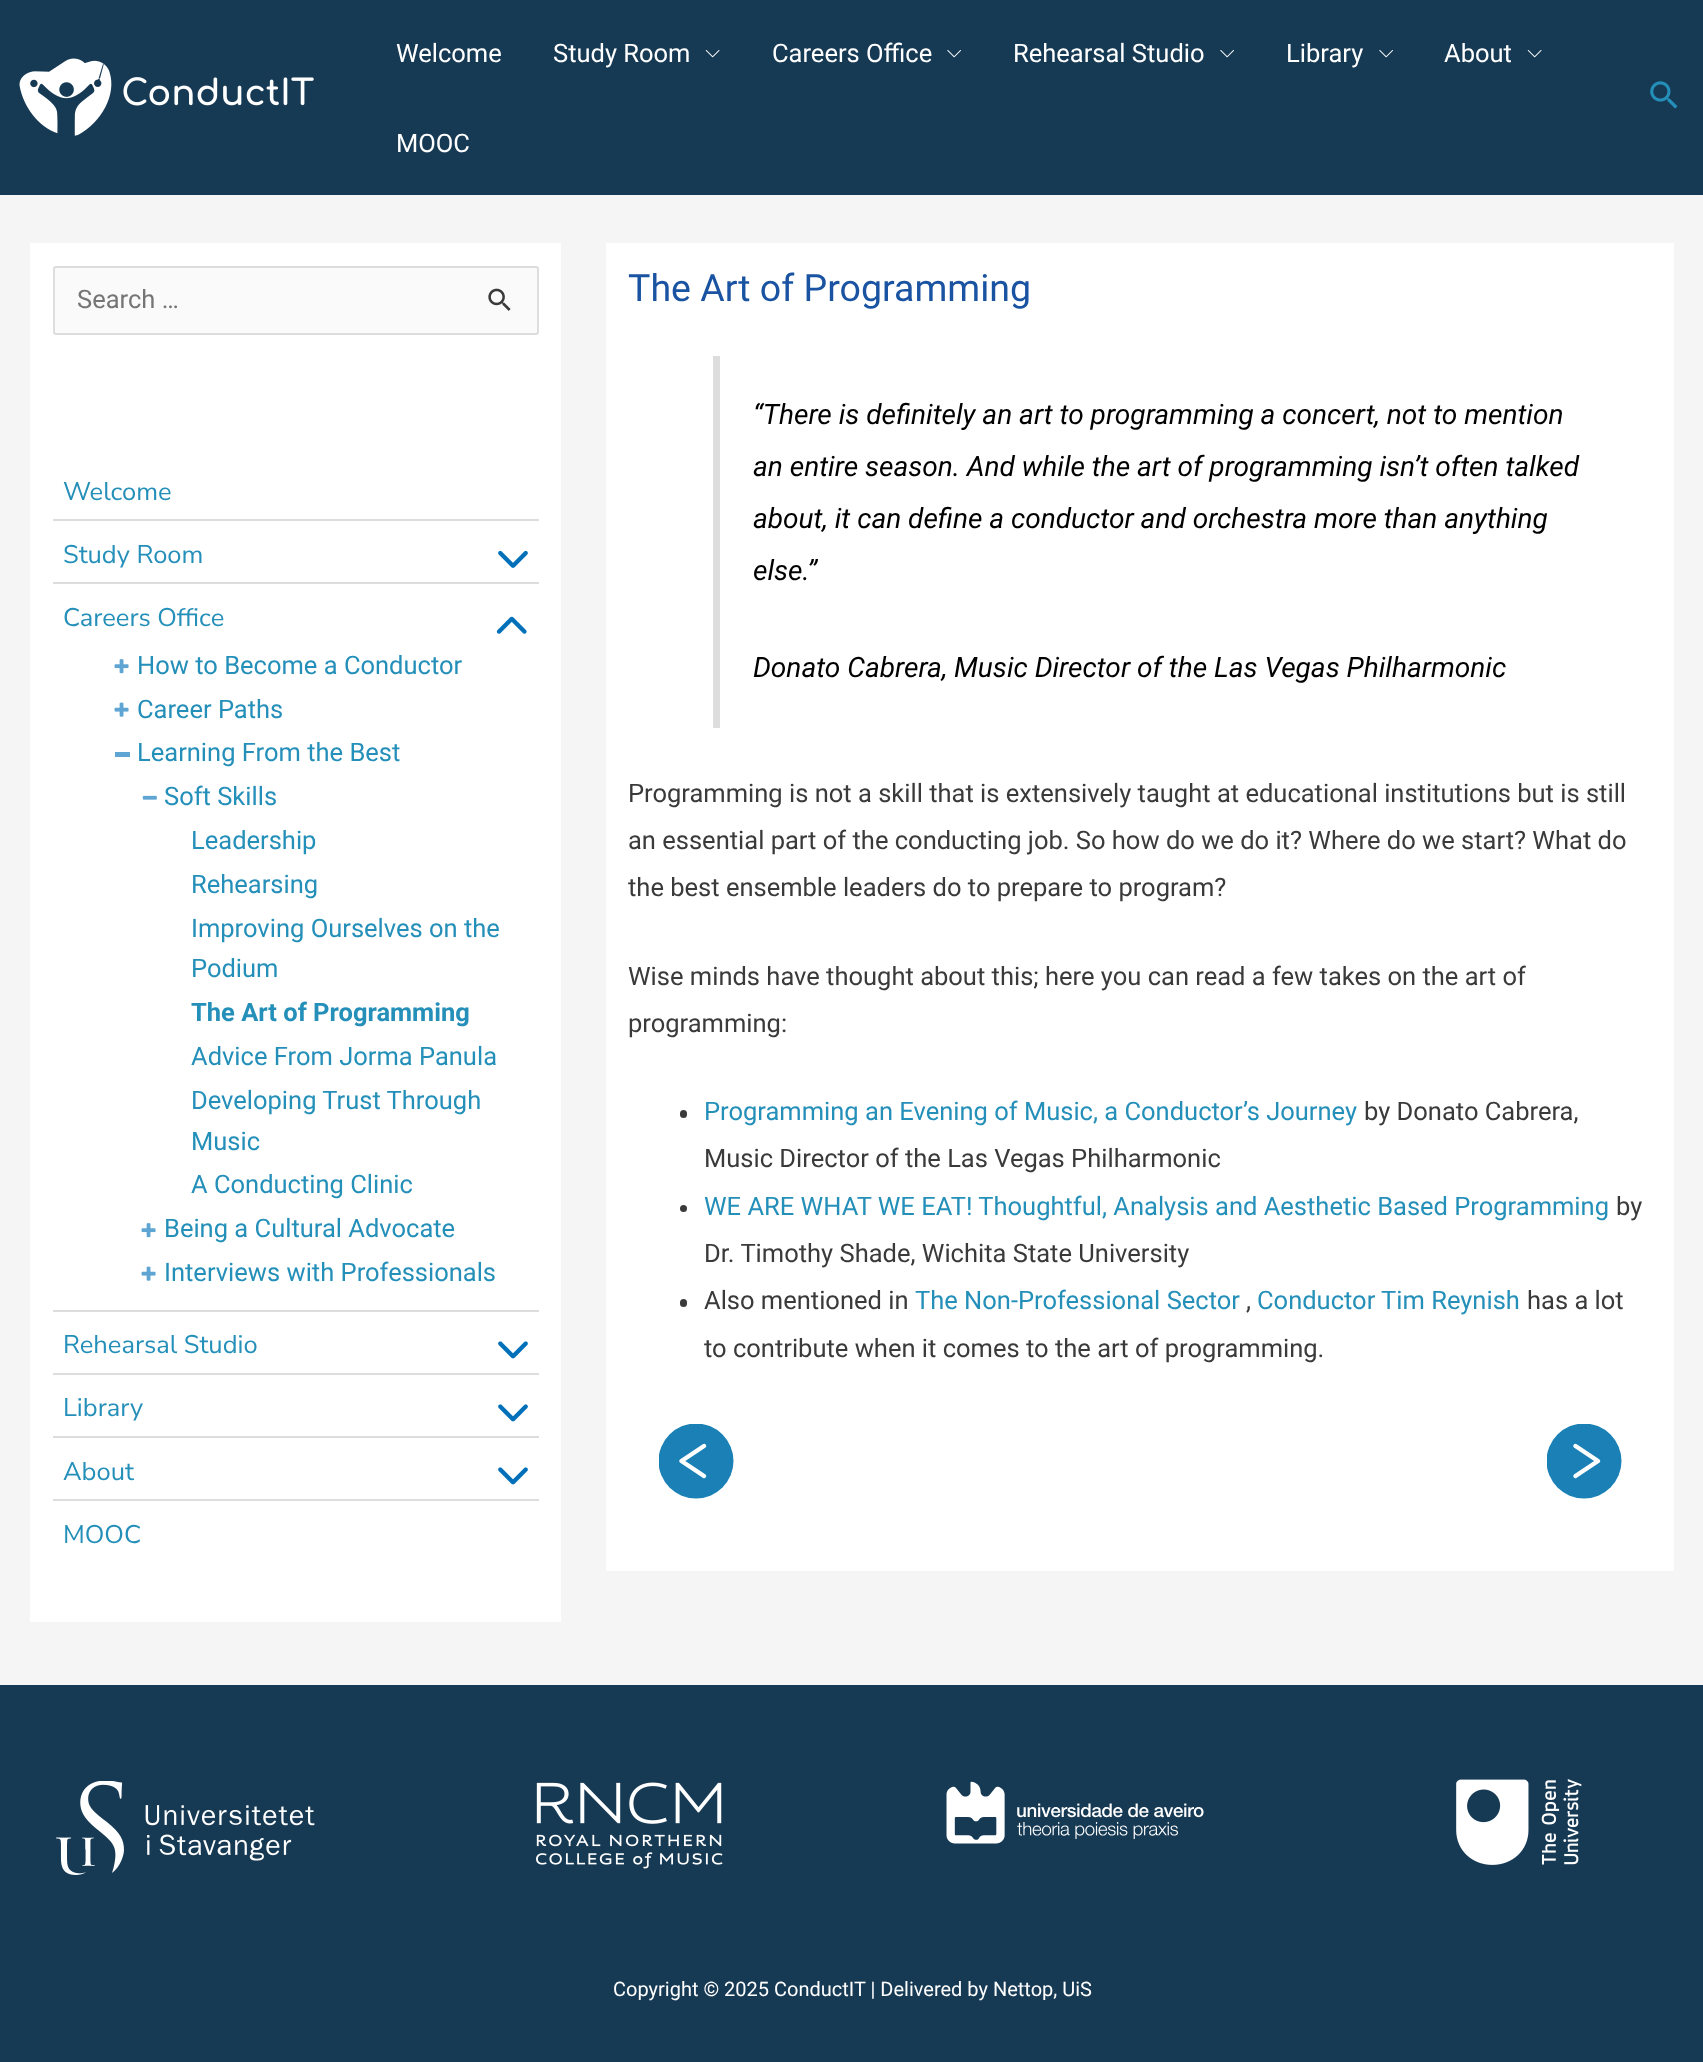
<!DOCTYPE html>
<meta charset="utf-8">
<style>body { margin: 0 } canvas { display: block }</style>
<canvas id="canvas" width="1703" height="2062"></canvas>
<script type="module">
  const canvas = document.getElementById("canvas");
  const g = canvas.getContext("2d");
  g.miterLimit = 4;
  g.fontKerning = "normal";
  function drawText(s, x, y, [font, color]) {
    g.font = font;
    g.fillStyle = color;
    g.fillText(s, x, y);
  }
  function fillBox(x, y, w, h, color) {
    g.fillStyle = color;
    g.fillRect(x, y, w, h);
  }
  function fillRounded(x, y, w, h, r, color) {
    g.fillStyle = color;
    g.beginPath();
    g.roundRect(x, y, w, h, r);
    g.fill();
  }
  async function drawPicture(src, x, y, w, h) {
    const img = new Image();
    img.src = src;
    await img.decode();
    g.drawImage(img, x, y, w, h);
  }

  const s1 = ["25.5px Roboto", "#FFFFFF"];
  const s2 = ["25.5px Roboto", "#757575"];
  const s3 = ["25.5px Nunito Sans", "#248FB9"];
  const s4 = ["25.5px Roboto", "#248FB9"];
  const s5 = ["bold 25.5px Roboto", "#248FB9"];
  const s6 = ["37.5px Roboto", "#1953A1"];
  const s7 = ["italic 28.05px Roboto", "#000000"];
  const s8 = ["25.5px Roboto", "#3A3A3A"];
  const s9 = ["20px Roboto", "#FFFFFF"];

  fillBox(0, 0, 1703, 2062, "#F5F5F5");
  fillBox(0, 0, 1703, 195, "#163954");
  await drawPicture("pic1.png", 19, 58, 295, 78);
  drawText("Welcome", 396, 62, s1);
  drawText("Study Room", 553, 62, s1);
  await drawPicture("pic2.png", 705, 50, 15, 8);
  drawText("Careers Office", 772, 62, s1);
  await drawPicture("pic3.png", 947, 50, 14, 8);
  drawText("Rehearsal Studio", 1013, 62, s1);
  await drawPicture("pic3.png", 1220, 50, 14, 8);
  drawText("Library", 1286, 62, s1);
  await drawPicture("pic3.png", 1379, 50, 14, 8);
  drawText("About", 1444, 62, s1);
  await drawPicture("pic2.png", 1527, 50, 15, 8);
  drawText("MOOC", 396, 152, s1);
  await drawPicture("pic4.png", 1650, 81, 28, 28);
  fillBox(30, 243, 531, 1379, "#FFFFFF");
  g.fillStyle = "#FAFAFA";
  g.beginPath();
  g.roundRect(54, 267, 484, 67, 2);
  g.fill();
  g.strokeStyle = "#DDDDDD";
  g.lineWidth = 2;
  g.stroke();
  drawText("Search …", 77, 308, s2);
  await drawPicture("pic5.png", 488, 288, 23, 23);
  drawText("Welcome", 63, 500, s3);
  fillBox(53, 519, 486, 2, "#DDDDDD");
  drawText("Study Room", 63, 563, s3);
  await drawPicture("pic6.png", 498, 550, 30, 18);
  fillBox(53, 582, 486, 2, "#DDDDDD");
  drawText("Careers Office", 63, 626, s3);
  await drawPicture("pic7.png", 496, 616, 31, 18);
  await drawPicture("pic8.png", 114, 659, 15, 15);
  drawText("How to Become a Conductor", 137, 674, s4);
  await drawPicture("pic9.png", 114, 702, 15, 15);
  drawText("Career Paths", 137, 718, s4);
  fillBox(115, 752, 15, 5, "#5FA5D3");
  drawText("Learning From the Best", 137, 761, s4);
  await drawPicture("pic10.png", 142, 795, 15, 5);
  drawText("Soft Skills", 164, 805, s4);
  drawText("Leadership", 191, 849, s4);
  drawText("Rehearsing", 191, 893, s4);
  drawText("Improving Ourselves on the", 191, 937, s4);
  drawText("Podium", 191, 977, s4);
  drawText("The Art of Programming", 191, 1021, s5);
  drawText("Advice From Jorma Panula", 191, 1065, s4);
  drawText("Developing Trust Through", 191, 1109, s4);
  drawText("Music", 191, 1150, s4);
  drawText("A Conducting Clinic", 191, 1193, s4);
  await drawPicture("pic8.png", 141, 1223, 15, 15);
  drawText("Being a Cultural Advocate", 164, 1237, s4);
  await drawPicture("pic9.png", 141, 1266, 15, 15);
  drawText("Interviews with Professionals", 164, 1281, s4);
  fillBox(53, 1310, 486, 2, "#DDDDDD");
  drawText("Rehearsal Studio", 63, 1353, s3);
  await drawPicture("pic11.png", 498, 1341, 30, 18);
  fillBox(53, 1373, 486, 2, "#DDDDDD");
  drawText("Library", 63, 1416, s3);
  await drawPicture("pic11.png", 498, 1404, 30, 18);
  fillBox(53, 1436, 486, 2, "#DDDDDD");
  drawText("About", 63, 1480, s3);
  await drawPicture("pic11.png", 498, 1467, 30, 18);
  fillBox(53, 1499, 486, 2, "#DDDDDD");
  drawText("MOOC", 63, 1543, s3);
  fillBox(606, 243, 1068, 1328, "#FFFFFF");
  drawText("The Art of Programming", 628, 301, s6);
  fillBox(713, 356, 7, 372, "#DDDDDD");
  drawText("“There is definitely an art to programming a concert, not to mention", 753, 424, s7);
  drawText("an entire season. And while the art of programming isn’t often talked", 753, 476, s7);
  drawText("about, it can define a conductor and orchestra more than anything", 753, 528, s7);
  drawText("else.”", 753, 580, s7);
  drawText("Donato Cabrera, Music Director of the Las Vegas Philharmonic", 753, 677, s7);
  drawText("Programming is not a skill that is extensively taught at educational institutions but is still", 628, 802, s8);
  drawText("an essential part of the conducting job. So how do we do it? Where do we start? What do", 628, 849, s8);
  drawText("the best ensemble leaders do to prepare to program?", 628, 896, s8);
  drawText("Wise minds have thought about this; here you can read a few takes on the art of", 628, 985, s8);
  drawText("programming:", 628, 1032, s8);
  fillRounded(680, 1110, 7, 8, 3.5, "#3A3A3A");
  drawText("Programming an Evening of Music, a Conductor’s Journey", 704, 1120, s4);
  drawText("by Donato Cabrera,", 1364, 1120, s8);
  drawText("Music Director of the Las Vegas Philharmonic", 704, 1167, s8);
  g.beginPath();
  g.arc(683.5, 1208.5, 3.5, 0, Math.PI * 2);
  g.fill();
  drawText("WE ARE WHAT WE EAT! Thoughtful, Analysis and Aesthetic Based Programming", 704, 1215, s4);
  drawText("by", 1616, 1215, s8);
  drawText("Dr. Timothy Shade, Wichita State University", 704, 1262, s8);
  fillRounded(680, 1299, 7, 8, 3.5, "#3A3A3A");
  drawText("Also mentioned in", 704, 1309, s8);
  drawText("The Non-Professional Sector", 915, 1309, s4);
  drawText("Conductor Tim Reynish", 1257, 1309, s4);
  drawText("has a lot", 1527, 1309, s8);
  drawText(",", 1246, 1309, s8);
  drawText("to contribute when it comes to the art of programming.", 704, 1357, s8);
  g.save();
  g.beginPath();
  g.rect(659, 1424, 75, 75);
  g.clip();
  g.fillStyle = "#1A80B6";
  g.beginPath();
  g.arc(696, 1461, 37.5, 0, Math.PI * 2);
  g.fill();
  g.restore();
  g.beginPath();
  g.moveTo(704, 1476);
  g.lineTo(681.5, 1461);
  g.lineTo(704, 1446);
  g.strokeStyle = "#FFFFFF";
  g.lineWidth = 4.5;
  g.lineCap = "round";
  g.lineJoin = "round";
  g.stroke();
  g.save();
  g.beginPath();
  g.rect(1547, 1424, 75, 75);
  g.clip();
  g.fillStyle = "#1A80B6";
  g.beginPath();
  g.arc(1584, 1461, 37.5, 0, Math.PI * 2);
  g.fill();
  g.restore();
  g.beginPath();
  g.moveTo(1575.5, 1446);
  g.lineTo(1598, 1461);
  g.lineTo(1575.5, 1476);
  g.stroke();
  fillBox(0, 1685, 1703, 377, "#163954");
  await drawPicture("pic12.png", 56, 1781, 259, 94);
  await drawPicture("pic13.png", 536, 1782, 187, 87);
  await drawPicture("pic14.png", 946, 1781, 258, 63);
  await drawPicture("pic15.png", 1456, 1779, 126, 86);
  drawText("Copyright © 2025 ConductIT | Delivered by Nettop, UiS", 613, 1996, s9);
</script>
